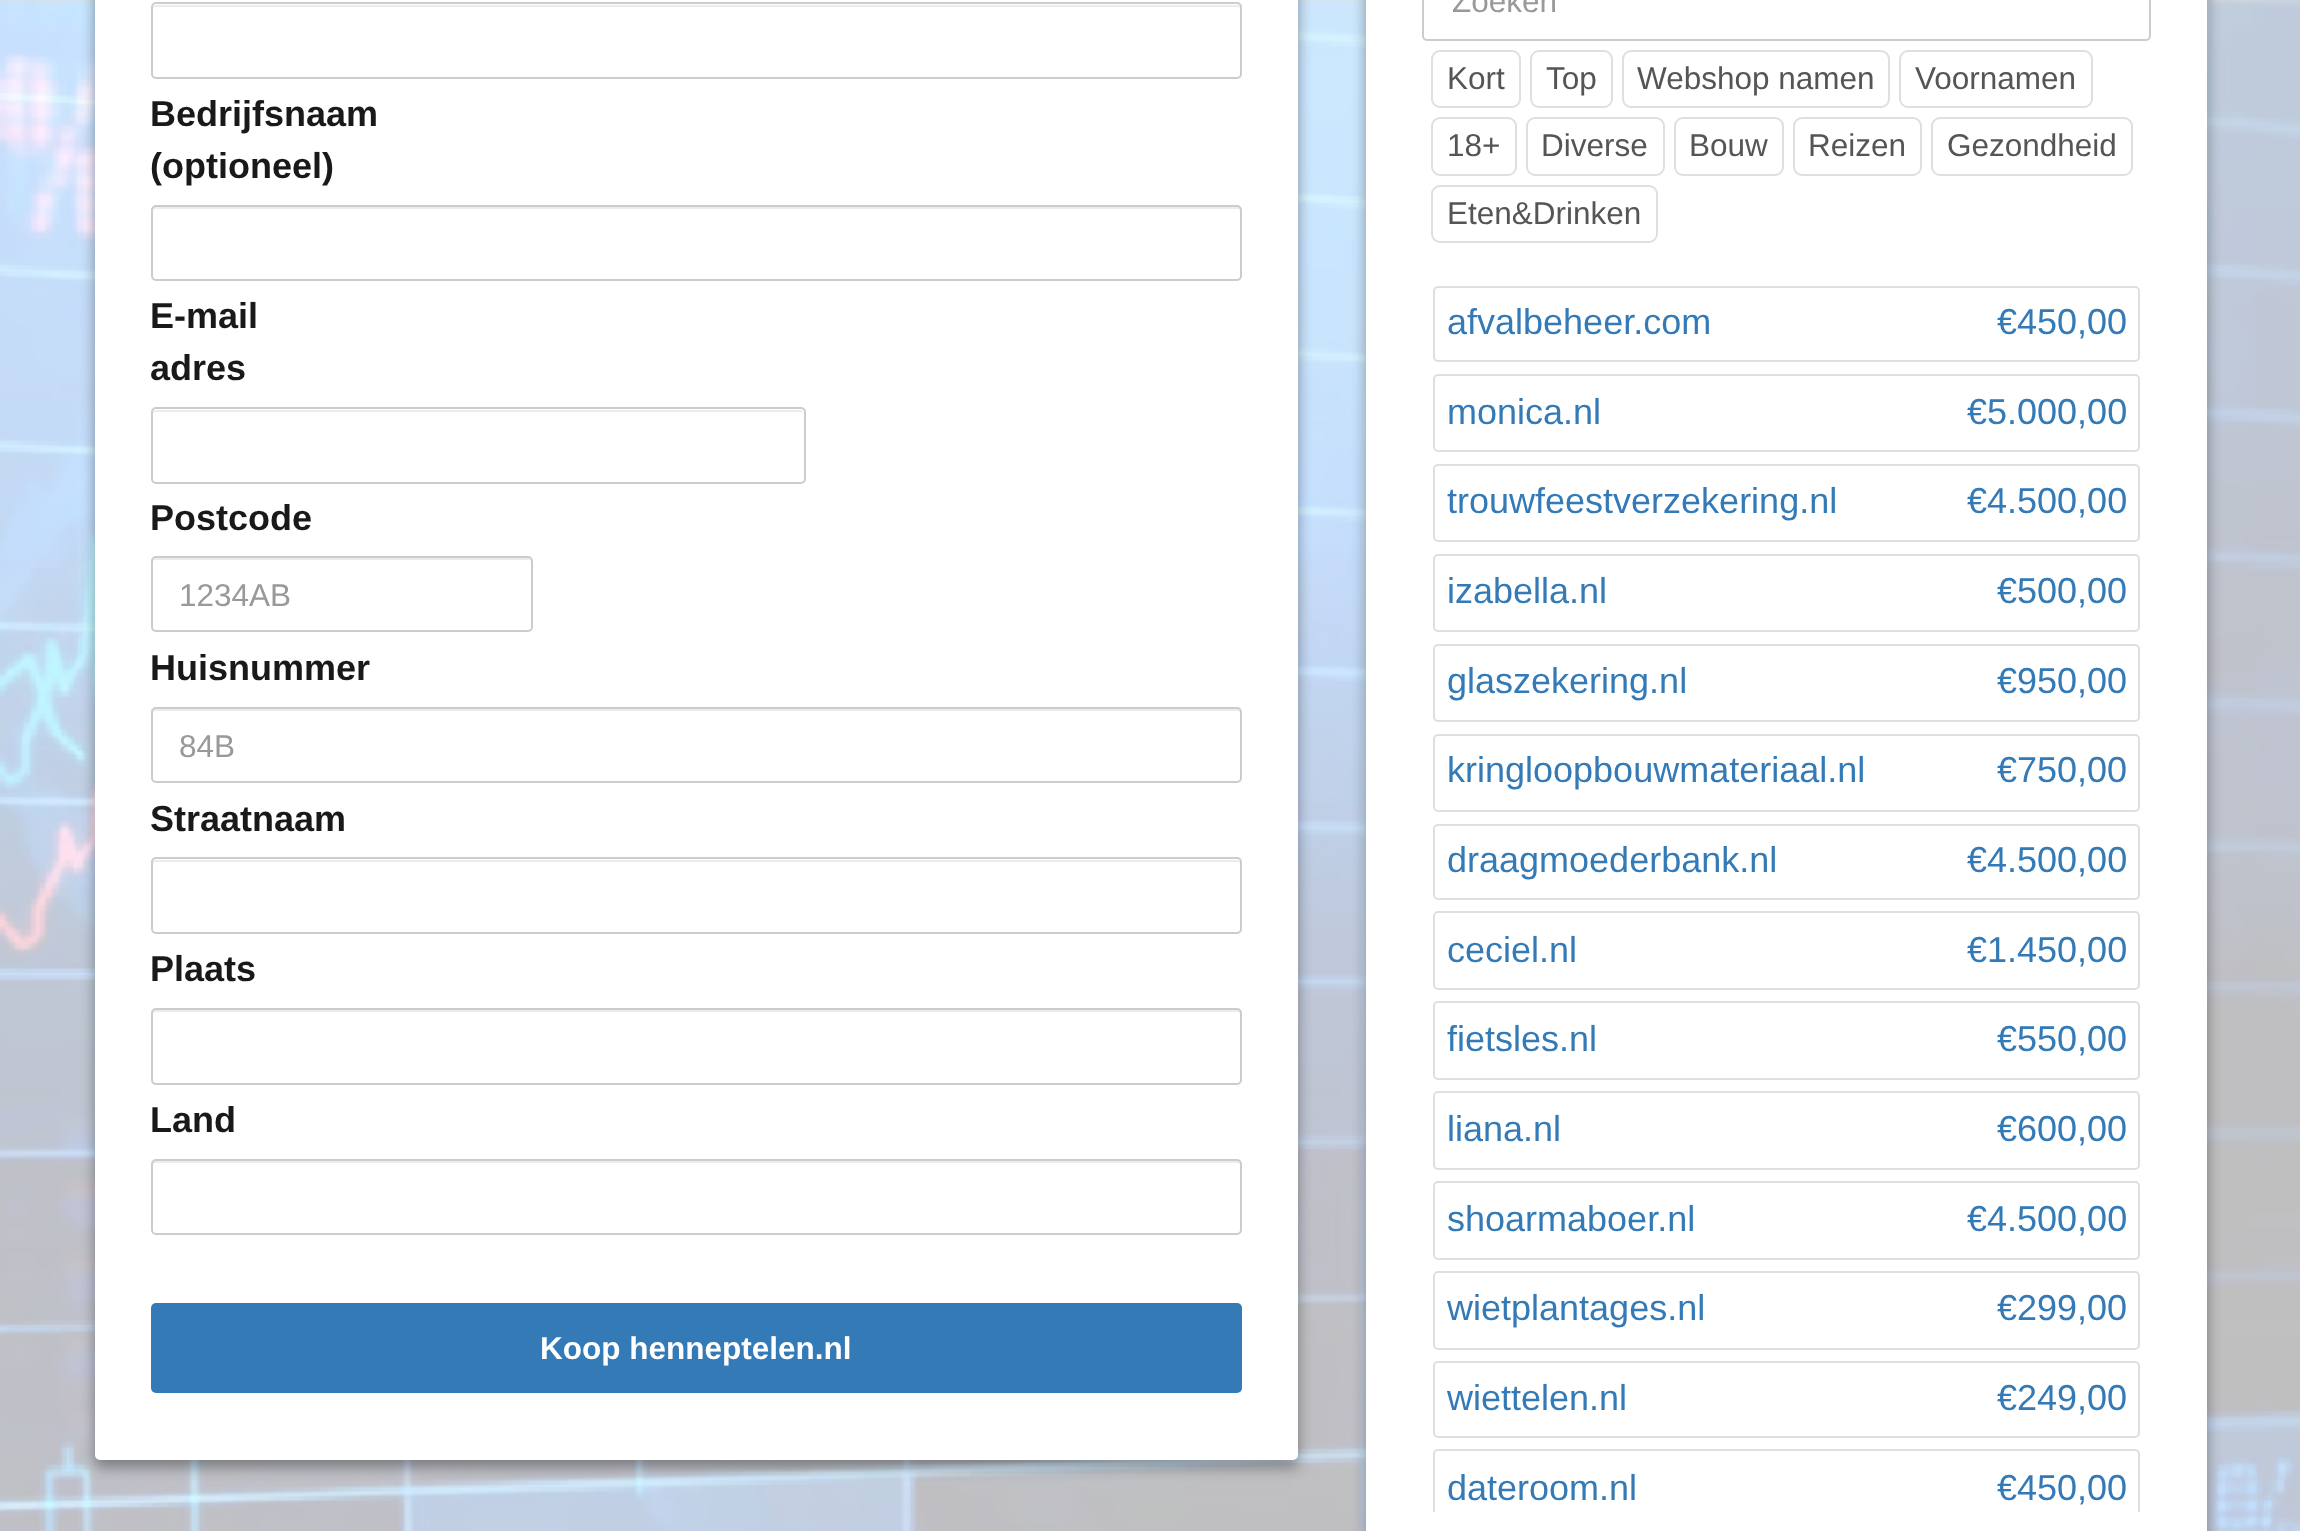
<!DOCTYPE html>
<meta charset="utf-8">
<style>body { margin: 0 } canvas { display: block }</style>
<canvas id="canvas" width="2300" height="1531"></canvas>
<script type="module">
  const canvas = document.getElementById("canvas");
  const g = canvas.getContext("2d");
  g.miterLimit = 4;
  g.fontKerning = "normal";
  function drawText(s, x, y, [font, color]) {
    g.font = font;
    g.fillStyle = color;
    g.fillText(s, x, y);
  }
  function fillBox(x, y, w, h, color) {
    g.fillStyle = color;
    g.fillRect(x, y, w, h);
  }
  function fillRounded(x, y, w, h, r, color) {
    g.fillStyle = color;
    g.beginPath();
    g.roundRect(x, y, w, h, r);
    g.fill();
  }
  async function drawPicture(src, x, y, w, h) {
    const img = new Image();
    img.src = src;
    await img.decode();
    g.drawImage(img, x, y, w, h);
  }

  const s1 = ["bold 36px Liberation Sans", "#191919"];
  const s2 = ["31.5px Liberation Sans", "#999999"];
  const s3 = ["bold 31.5px Liberation Sans", "#FFFFFF"];
  const s4 = ["31.5px Liberation Sans", "#555555"];
  const s5 = ["36px Liberation Sans", "#337AB7"];

  fillBox(0, 0, 2300, 1531, "#DFDFDF");
  await drawPicture("pic1.png", 0, 0, 2300, 1531);
  g.fillStyle = "rgba(0, 0, 0, 0.23)";
  g.filter = "blur(7px)";
  g.beginPath();
  g.roundRect(95, -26, 1203, 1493, 5);
  g.fill();
  g.filter = "none";
  g.fillStyle = "rgba(0, 0, 0, 0.16)";
  g.filter = "blur(7px)";
  g.beginPath();
  g.roundRect(95, -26, 1203, 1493, 5);
  g.fill();
  g.filter = "none";
  fillRounded(95, -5, 1203, 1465, 5, "#FFFFFF");
  g.fillStyle = "#ECECEC";
  g.beginPath();
  g.moveTo(155, 7);
  g.lineTo(1238, 7);
  g.bezierCurveTo(1239, 7, 1240, 8, 1240, 9);
  g.bezierCurveTo(1240, 7, 1240, 5, 1238, 5);
  g.lineTo(155, 5);
  g.lineTo(153, 6);
  g.lineTo(153, 9);
  g.bezierCurveTo(153, 8, 154, 7, 155, 7);
  g.closePath();
  g.fill();
  g.beginPath();
  g.roundRect(152, 3, 1089, 75, 4);
  g.strokeStyle = "#CCCCCC";
  g.lineWidth = 2;
  g.stroke();
  drawText("Bedrijfsnaam", 150, 126, s1);
  drawText("(optioneel)", 150, 178, s1);
  g.fillStyle = "#ECECEC";
  g.beginPath();
  g.moveTo(155, 209);
  g.lineTo(1238, 209);
  g.bezierCurveTo(1239, 209, 1240, 210, 1240, 212);
  g.bezierCurveTo(1240, 211, 1241, 208, 1239, 207);
  g.lineTo(155, 207);
  g.lineTo(153, 208);
  g.lineTo(153, 212);
  g.bezierCurveTo(153, 210, 154, 209, 155, 209);
  g.closePath();
  g.fill();
  g.beginPath();
  g.roundRect(152, 206, 1089, 74, 4);
  g.stroke();
  drawText("E-mail", 150, 328, s1);
  drawText("adres", 150, 380, s1);
  g.fillStyle = "#ECECEC";
  g.beginPath();
  g.moveTo(155, 412);
  g.lineTo(801, 412);
  g.bezierCurveTo(802, 412, 803, 413, 803, 414);
  g.bezierCurveTo(803, 412, 803, 410, 801, 410);
  g.lineTo(155, 410);
  g.lineTo(153, 411);
  g.lineTo(153, 414);
  g.bezierCurveTo(153, 413, 154, 412, 155, 412);
  g.closePath();
  g.fill();
  g.beginPath();
  g.roundRect(152, 408, 653, 75, 4);
  g.stroke();
  drawText("Postcode", 150, 530, s1);
  g.fillStyle = "#ECECEC";
  g.beginPath();
  g.moveTo(155, 560);
  g.lineTo(529, 560);
  g.bezierCurveTo(530, 560, 531, 561, 531, 562);
  g.lineTo(531, 560);
  g.bezierCurveTo(531, 559, 530, 558, 529, 558);
  g.lineTo(155, 558);
  g.bezierCurveTo(154, 558, 153, 559, 153, 560);
  g.lineTo(153, 562);
  g.bezierCurveTo(153, 561, 154, 560, 155, 560);
  g.closePath();
  g.fill();
  g.beginPath();
  g.roundRect(152, 557, 380, 74, 4);
  g.stroke();
  drawText("1234AB", 179, 606, s2);
  drawText("Huisnummer", 150, 680, s1);
  g.fillStyle = "#ECECEC";
  g.beginPath();
  g.moveTo(155, 711);
  g.lineTo(1238, 711);
  g.bezierCurveTo(1239, 711, 1240, 712, 1240, 713);
  g.bezierCurveTo(1240, 711, 1240, 709, 1238, 709);
  g.lineTo(155, 709);
  g.lineTo(153, 710);
  g.lineTo(153, 713);
  g.bezierCurveTo(153, 712, 154, 711, 155, 711);
  g.closePath();
  g.fill();
  g.beginPath();
  g.roundRect(152, 708, 1089, 74, 4);
  g.stroke();
  drawText("84B", 179, 757, s2);
  drawText("Straatnaam", 150, 831, s1);
  g.fillStyle = "#ECECEC";
  g.beginPath();
  g.moveTo(155, 862);
  g.lineTo(1238, 862);
  g.bezierCurveTo(1239, 862, 1240, 863, 1240, 864);
  g.bezierCurveTo(1240, 862, 1240, 860, 1238, 860);
  g.lineTo(155, 860);
  g.lineTo(153, 861);
  g.lineTo(153, 864);
  g.bezierCurveTo(153, 863, 154, 862, 155, 862);
  g.closePath();
  g.fill();
  g.beginPath();
  g.roundRect(152, 858, 1089, 75, 4);
  g.stroke();
  drawText("Plaats", 150, 981, s1);
  g.fillStyle = "#ECECEC";
  g.beginPath();
  g.moveTo(155, 1012);
  g.lineTo(1238, 1012);
  g.bezierCurveTo(1239, 1012, 1240, 1014, 1240, 1015);
  g.bezierCurveTo(1240, 1014, 1241, 1011, 1239, 1010);
  g.lineTo(155, 1010);
  g.lineTo(153, 1011);
  g.lineTo(153, 1015);
  g.bezierCurveTo(153, 1014, 154, 1012, 155, 1012);
  g.closePath();
  g.fill();
  g.beginPath();
  g.roundRect(152, 1009, 1089, 75, 4);
  g.stroke();
  drawText("Land", 150, 1132, s1);
  g.fillStyle = "#ECECEC";
  g.beginPath();
  g.moveTo(155, 1163);
  g.lineTo(1238, 1163);
  g.bezierCurveTo(1239, 1163, 1240, 1164, 1240, 1166);
  g.bezierCurveTo(1240, 1165, 1241, 1162, 1239, 1161);
  g.lineTo(155, 1161);
  g.lineTo(153, 1162);
  g.lineTo(153, 1166);
  g.bezierCurveTo(153, 1164, 154, 1163, 155, 1163);
  g.closePath();
  g.fill();
  g.beginPath();
  g.roundRect(152, 1160, 1089, 74, 4);
  g.stroke();
  fillRounded(151, 1303, 1091, 90, 5, "#337AB7");
  drawText("Koop henneptelen.nl", 540, 1359, s3);
  g.fillStyle = "rgba(0, 0, 0, 0.23)";
  g.filter = "blur(7px)";
  g.beginPath();
  g.roundRect(1366, -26, 841, 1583, 5);
  g.fill();
  g.filter = "none";
  g.fillStyle = "rgba(0, 0, 0, 0.16)";
  g.filter = "blur(7px)";
  g.beginPath();
  g.roundRect(1366, -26, 841, 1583, 5);
  g.fill();
  g.filter = "none";
  fillBox(1366, 0, 841, 1531, "#FFFFFF");
  g.beginPath();
  g.roundRect(1423, -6, 727, 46, 4);
  g.stroke();
  drawText("Zoeken", 1452, 12, s2);
  g.beginPath();
  g.roundRect(1432, 51, 88, 56, 8);
  g.strokeStyle = "#DFDFDF";
  g.stroke();
  drawText("Kort", 1447, 89, s4);
  g.beginPath();
  g.roundRect(1531, 51, 81, 56, 8);
  g.stroke();
  drawText("Top", 1546, 89, s4);
  g.beginPath();
  g.roundRect(1623, 51, 266, 56, 8);
  g.stroke();
  drawText("Webshop namen", 1637, 89, s4);
  g.beginPath();
  g.roundRect(1900, 51, 192, 56, 8);
  g.stroke();
  drawText("Voornamen", 1915, 89, s4);
  g.beginPath();
  g.roundRect(1432, 118, 84, 57, 8);
  g.stroke();
  drawText("18+", 1447, 156, s4);
  g.beginPath();
  g.roundRect(1527, 118, 137, 57, 8);
  g.stroke();
  drawText("Diverse", 1541, 156, s4);
  g.beginPath();
  g.roundRect(1675, 118, 108, 57, 8);
  g.stroke();
  drawText("Bouw", 1689, 156, s4);
  g.beginPath();
  g.roundRect(1794, 118, 127, 57, 8);
  g.stroke();
  drawText("Reizen", 1808, 156, s4);
  g.beginPath();
  g.roundRect(1932, 118, 200, 57, 8);
  g.stroke();
  drawText("Gezondheid", 1947, 156, s4);
  g.beginPath();
  g.roundRect(1432, 186, 225, 56, 8);
  g.stroke();
  drawText("Eten&Drinken", 1447, 224, s4);
  g.beginPath();
  g.roundRect(1434, 287, 705, 74, 4);
  g.stroke();
  drawText("afvalbeheer.com", 1447, 334, s5);
  drawText("€450,00", 1997, 334, s5);
  g.beginPath();
  g.roundRect(1434, 375, 705, 76, 4);
  g.stroke();
  drawText("monica.nl", 1447, 424, s5);
  drawText("€5.000,00", 1967, 424, s5);
  g.beginPath();
  g.roundRect(1434, 465, 705, 76, 4);
  g.stroke();
  drawText("trouwfeestverzekering.nl", 1447, 513, s5);
  drawText("€4.500,00", 1967, 513, s5);
  g.beginPath();
  g.roundRect(1434, 555, 705, 76, 4);
  g.stroke();
  drawText("izabella.nl", 1447, 603, s5);
  drawText("€500,00", 1997, 603, s5);
  g.beginPath();
  g.roundRect(1434, 645, 705, 76, 4);
  g.stroke();
  drawText("glaszekering.nl", 1447, 693, s5);
  drawText("€950,00", 1997, 693, s5);
  g.beginPath();
  g.roundRect(1434, 735, 705, 76, 4);
  g.stroke();
  drawText("kringloopbouwmateriaal.nl", 1447, 782, s5);
  drawText("€750,00", 1997, 782, s5);
  g.beginPath();
  g.roundRect(1434, 825, 705, 74, 4);
  g.stroke();
  drawText("draagmoederbank.nl", 1447, 872, s5);
  drawText("€4.500,00", 1967, 872, s5);
  g.beginPath();
  g.roundRect(1434, 912, 705, 77, 4);
  g.stroke();
  drawText("ceciel.nl", 1447, 962, s5);
  drawText("€1.450,00", 1967, 962, s5);
  g.beginPath();
  g.roundRect(1434, 1002, 705, 77, 4);
  g.stroke();
  drawText("fietsles.nl", 1447, 1051, s5);
  drawText("€550,00", 1997, 1051, s5);
  g.beginPath();
  g.roundRect(1434, 1092, 705, 77, 4);
  g.stroke();
  drawText("liana.nl", 1447, 1141, s5);
  drawText("€600,00", 1997, 1141, s5);
  g.beginPath();
  g.roundRect(1434, 1182, 705, 77, 4);
  g.stroke();
  drawText("shoarmaboer.nl", 1447, 1231, s5);
  drawText("€4.500,00", 1967, 1231, s5);
  g.beginPath();
  g.roundRect(1434, 1272, 705, 77, 4);
  g.stroke();
  drawText("wietplantages.nl", 1447, 1320, s5);
  drawText("€299,00", 1997, 1320, s5);
  g.beginPath();
  g.roundRect(1434, 1362, 705, 75, 4);
  g.stroke();
  drawText("wiettelen.nl", 1447, 1410, s5);
  drawText("€249,00", 1997, 1410, s5);
  g.save();
  g.beginPath();
  g.rect(1422, 275, 729, 1237);
  g.clip();
  g.beginPath();
  g.roundRect(1434, 1450, 705, 77, 4);
  g.stroke();
  g.restore();
  drawText("dateroom.nl", 1447, 1500, s5);
  drawText("€450,00", 1997, 1500, s5);
</script>
